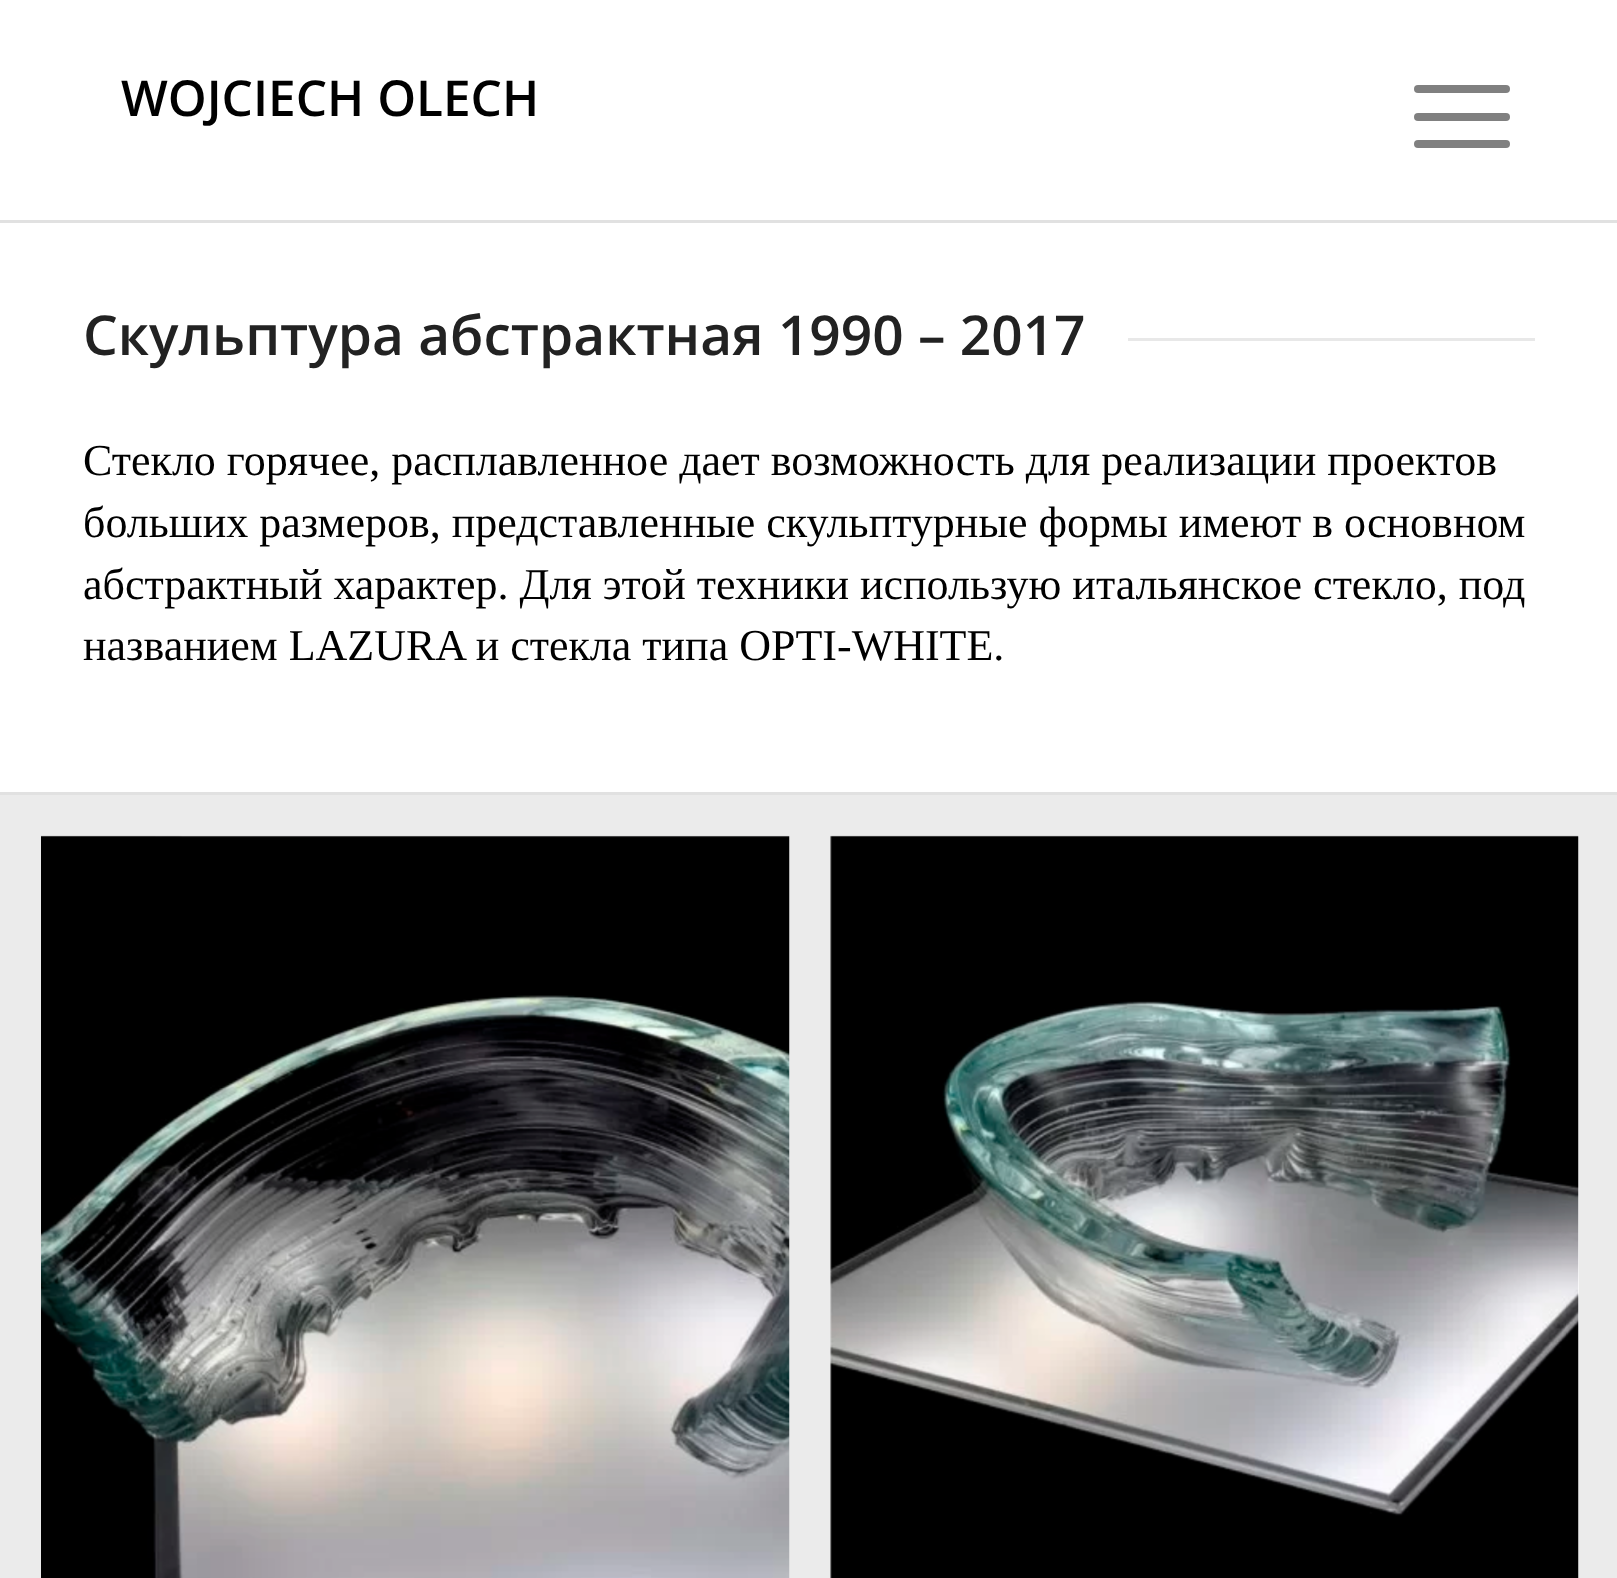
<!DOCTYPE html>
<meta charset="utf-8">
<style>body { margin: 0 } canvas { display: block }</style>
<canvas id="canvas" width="1617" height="1578"></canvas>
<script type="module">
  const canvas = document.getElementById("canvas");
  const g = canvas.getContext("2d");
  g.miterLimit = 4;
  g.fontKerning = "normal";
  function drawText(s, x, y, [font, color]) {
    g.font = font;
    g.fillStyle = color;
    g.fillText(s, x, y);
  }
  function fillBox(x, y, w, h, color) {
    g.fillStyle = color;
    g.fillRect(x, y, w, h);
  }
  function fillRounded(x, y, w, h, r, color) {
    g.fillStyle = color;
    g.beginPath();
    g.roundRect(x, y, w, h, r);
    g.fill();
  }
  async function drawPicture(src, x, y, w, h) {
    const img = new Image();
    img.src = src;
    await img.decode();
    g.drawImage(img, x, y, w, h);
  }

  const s1 = ["600 49.5px Open Sans", "#000000"];
  const s2 = ["600 55px Open Sans", "#222222"];
  const s3 = ["44px Liberation Serif", "#000000"];

  fillBox(0, 0, 1617, 1578, "#FFFFFF");
  fillBox(0, 220, 1617, 3, "#E1E1E1");
  drawText("WOJCIECH OLECH", 121, 116, s1);
  fillRounded(1414, 113, 96, 8, 4, "#808080");
  fillRounded(1414, 85, 96, 8, 4, "#808080");
  fillRounded(1414, 140, 96, 8, 4, "#808080");
  drawText("Скульптура абстрактная 1990 – 2017", 83, 355, s2);
  fillBox(1128, 338, 407, 3, "#E8E8E8");
  drawText("Стекло горячее, расплавленное дает возможность для реализации проектов", 83, 475, s3);
  drawText("больших размеров, представленные скульптурные формы имеют в основном", 83, 537, s3);
  drawText("абстрактный характер. Для этой техники использую итальянское стекло, под", 83, 599, s3);
  drawText("названием LAZURA и стекла типа OPTI-WHITE.", 83, 660, s3);
  fillBox(0, 792, 1617, 3, "#E1E1E1");
  fillBox(0, 795, 1617, 783, "#EBEBEB");
  await drawPicture("pic1.png", 41, 835, 749, 743);
  fillBox(831, 836, 748, 742, "#FFFFFF");
  await drawPicture("pic2.png", 830, 835, 749, 743);
</script>
